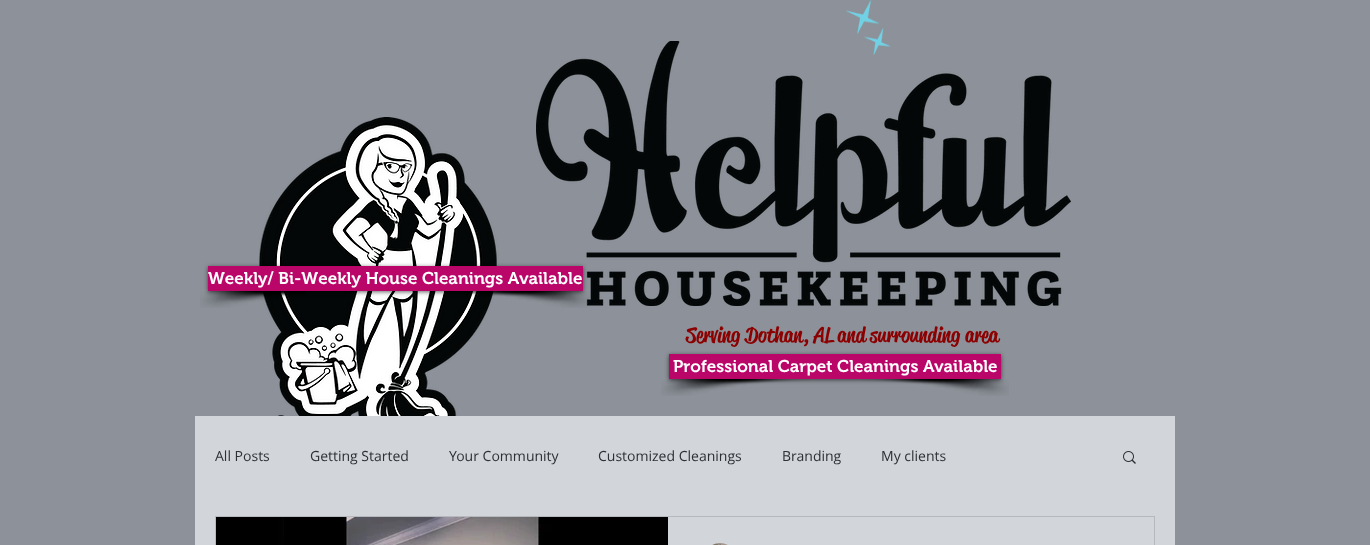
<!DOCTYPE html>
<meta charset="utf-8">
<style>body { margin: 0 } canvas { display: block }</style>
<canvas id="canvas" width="1370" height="545"></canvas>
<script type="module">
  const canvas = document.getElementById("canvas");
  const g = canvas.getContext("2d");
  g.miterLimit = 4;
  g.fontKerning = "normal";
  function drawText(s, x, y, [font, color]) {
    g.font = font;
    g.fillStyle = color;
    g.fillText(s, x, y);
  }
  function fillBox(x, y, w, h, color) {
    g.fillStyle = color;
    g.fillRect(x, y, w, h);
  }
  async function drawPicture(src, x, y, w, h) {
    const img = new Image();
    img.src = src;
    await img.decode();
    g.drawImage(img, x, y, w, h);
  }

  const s1 = ["600 17px 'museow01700'", "#FFFFFF"];
  const s2 = ["500 21px 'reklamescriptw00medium'", "#8B0000"];
  const s3 = ["14px Open Sans", "#2D3034"];

  fillBox(0, 0, 1370, 545, "#8D929A");
  await drawPicture("pic1.png", 846, 0, 45, 55);
  await drawPicture("pic2.png", 259, 117, 240, 299);
  await drawPicture("pic3.png", 536, 41, 535, 265);
  await drawPicture("pic4.png", 200, 291, 106, 17);
  await drawPicture("pic5.png", 438, 291, 152, 17);
  g.fillStyle = "rgba(0, 0, 0, 0.6)";
  g.filter = "blur(2px)";
  g.beginPath();
  g.rect(208, 267, 375, 25);
  g.fill();
  g.filter = "none";
  fillBox(208, 266, 375, 25, "#BA0669");
  drawText("Weekly/ Bi-Weekly House Cleanings Available", 208, 284, s1);
  drawText("Serving Dothan, AL and surrounding area", 686, 342, s2);
  await drawPicture("pic6.png", 661, 379, 148, 17);
  await drawPicture("pic7.png", 861, 379, 148, 17);
  g.fillStyle = "rgba(0, 0, 0, 0.6)";
  g.filter = "blur(2px)";
  g.beginPath();
  g.rect(669, 355, 332, 25);
  g.fill();
  g.filter = "none";
  fillBox(669, 354, 332, 25, "#BA0669");
  drawText("Professional Carpet Cleanings Available", 673, 372, s1);
  fillBox(195, 416, 980, 129, "#D2D5D9");
  drawText("All Posts", 215, 461, s3);
  drawText("Getting Started", 310, 461, s3);
  drawText("Your Community", 449, 461, s3);
  drawText("Customized Cleanings", 598, 461, s3);
  drawText("Branding", 782, 461, s3);
  drawText("My clients", 881, 461, s3);
  await drawPicture("pic8.png", 1123, 451, 13, 13);
  g.strokeStyle = "#B5B8BD";
  g.strokeRect(215.5, 516.5, 939, 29);
  await drawPicture("pic9.png", 216, 517, 68, 28);
  await drawPicture("pic10.png", 284, 517, 384, 28);
  await drawPicture("pic11.png", 712, 543, 16, 2);
</script>
